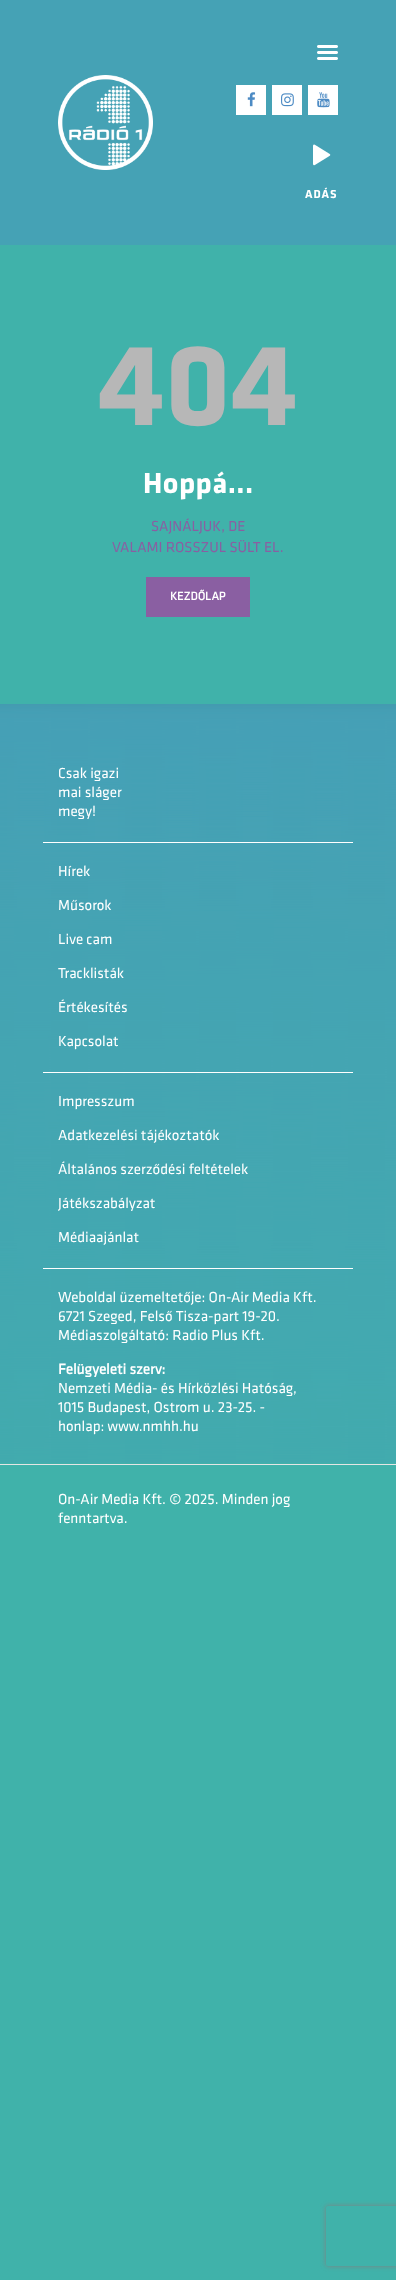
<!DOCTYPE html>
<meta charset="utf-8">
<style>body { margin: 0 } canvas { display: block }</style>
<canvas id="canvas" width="396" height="2280"></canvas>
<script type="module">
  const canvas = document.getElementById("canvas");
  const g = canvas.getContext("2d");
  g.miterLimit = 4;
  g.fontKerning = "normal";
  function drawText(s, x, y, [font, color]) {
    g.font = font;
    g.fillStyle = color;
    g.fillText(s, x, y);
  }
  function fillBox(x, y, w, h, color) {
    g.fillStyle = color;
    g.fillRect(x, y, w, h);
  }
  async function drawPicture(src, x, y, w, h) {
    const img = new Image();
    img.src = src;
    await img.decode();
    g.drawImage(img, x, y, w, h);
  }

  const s1 = ["bold 12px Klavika", "#FFFFFF"];
  const s2 = ["bold 120px Klavika", "#B7B7B7"];
  const s3 = ["bold 30px Klavika", "#FFFFFF"];
  const s4 = ["15px Klavika", "#8A5FA2"];
  const s5 = ["bold 12px 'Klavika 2'", "#FFFFFF"];
  const s6 = ["15px Klavika", "#FFFFFF"];
  const s7 = ["bold 15px 'Klavika 2'", "#FFFFFF"];

  fillBox(0, 0, 396, 2280, "#40B2AA");
  fillBox(0, 0, 396, 245, "#45A2B5");
  await drawPicture("pic1.png", 58, 75, 95, 95);
  await drawPicture("pic2.png", 317, 45, 21, 15);
  fillBox(236, 85, 30, 30, "#FFFFFF");
  await drawPicture("pic3.png", 247, 92, 9, 15);
  fillBox(272, 85, 30, 30, "#FFFFFF");
  await drawPicture("pic4.png", 281, 93, 13, 14);
  fillBox(308, 85, 30, 30, "#FFFFFF");
  await drawPicture("pic5.png", 317, 92, 13, 16);
  await drawPicture("pic6.png", 313, 144, 18, 22);
  g.letterSpacing = "1px";
  drawText("ADÁS", 305, 198, s1);
  g.letterSpacing = "0px";
  drawText("404", 98, 425, s2);
  g.letterSpacing = "0.5px";
  drawText("Hoppá...", 143, 493, s3);
  g.letterSpacing = "0px";
  drawText("SAJNÁLJUK, DE", 151, 531, s4);
  drawText("VALAMI ROSSZUL SÜLT EL.", 112, 552, s4);
  fillBox(146, 577, 104, 40, "#8A5FA2");
  drawText("KEZDŐLAP", 170, 600, s5);
  await drawPicture("pic7.png", 0, 704, 396, 759);
  fillBox(0, 1464, 396, 1, "#E5E5E5");
  drawText("Csak igazi", 58, 778, s6);
  drawText("mai sláger", 58, 797, s6);
  drawText("megy!", 58, 816, s6);
  fillBox(43, 842, 310, 1, "#FFFFFF");
  drawText("Hírek", 58, 876, s6);
  drawText("Műsorok", 58, 910, s6);
  drawText("Live cam", 58, 944, s6);
  drawText("Tracklisták", 58, 978, s6);
  drawText("Értékesítés", 58, 1012, s6);
  drawText("Kapcsolat", 58, 1046, s6);
  fillBox(43, 1072, 310, 1, "#FFFFFF");
  drawText("Impresszum", 58, 1106, s6);
  drawText("Adatkezelési tájékoztatók", 58, 1140, s6);
  drawText("Általános szerződési feltételek", 58, 1174, s6);
  drawText("Játékszabályzat", 58, 1208, s6);
  drawText("Médiaajánlat", 58, 1242, s6);
  fillBox(43, 1268, 310, 1, "#FFFFFF");
  drawText("Weboldal üzemeltetője: On-Air Media Kft.", 58, 1302, s6);
  drawText("6721 Szeged, Felső Tisza-part 19-20.", 58, 1321, s6);
  drawText("Médiaszolgáltató: Radio Plus Kft.", 58, 1340, s6);
  drawText("Felügyeleti szerv:", 58, 1374, s7);
  drawText("Nemzeti Média- és Hírközlési Hatóság,", 58, 1393, s6);
  drawText("1015 Budapest, Ostrom u. 23-25. -", 58, 1412, s6);
  drawText("honlap: www.nmhh.hu", 58, 1431, s6);
  drawText("On-Air Media Kft. © 2025. Minden jog", 58, 1504, s6);
  drawText("fenntartva.", 58, 1523, s6);
  g.save();
  g.beginPath();
  g.moveTo(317, 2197);
  g.lineTo(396, 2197);
  g.lineTo(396, 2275);
  g.lineTo(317, 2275);
  g.closePath();
  g.moveTo(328, 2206);
  g.lineTo(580, 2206);
  g.bezierCurveTo(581, 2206, 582, 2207, 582, 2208);
  g.lineTo(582, 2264);
  g.bezierCurveTo(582, 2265, 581, 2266, 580, 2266);
  g.lineTo(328, 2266);
  g.bezierCurveTo(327, 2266, 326, 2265, 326, 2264);
  g.lineTo(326, 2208);
  g.bezierCurveTo(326, 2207, 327, 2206, 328, 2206);
  g.closePath();
  g.clip("evenodd");
  g.fillStyle = "#808080";
  g.filter = "blur(2.5px)";
  g.beginPath();
  g.roundRect(326, 2206, 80, 60, 2);
  g.fill();
  g.filter = "none";
  g.restore();
</script>
